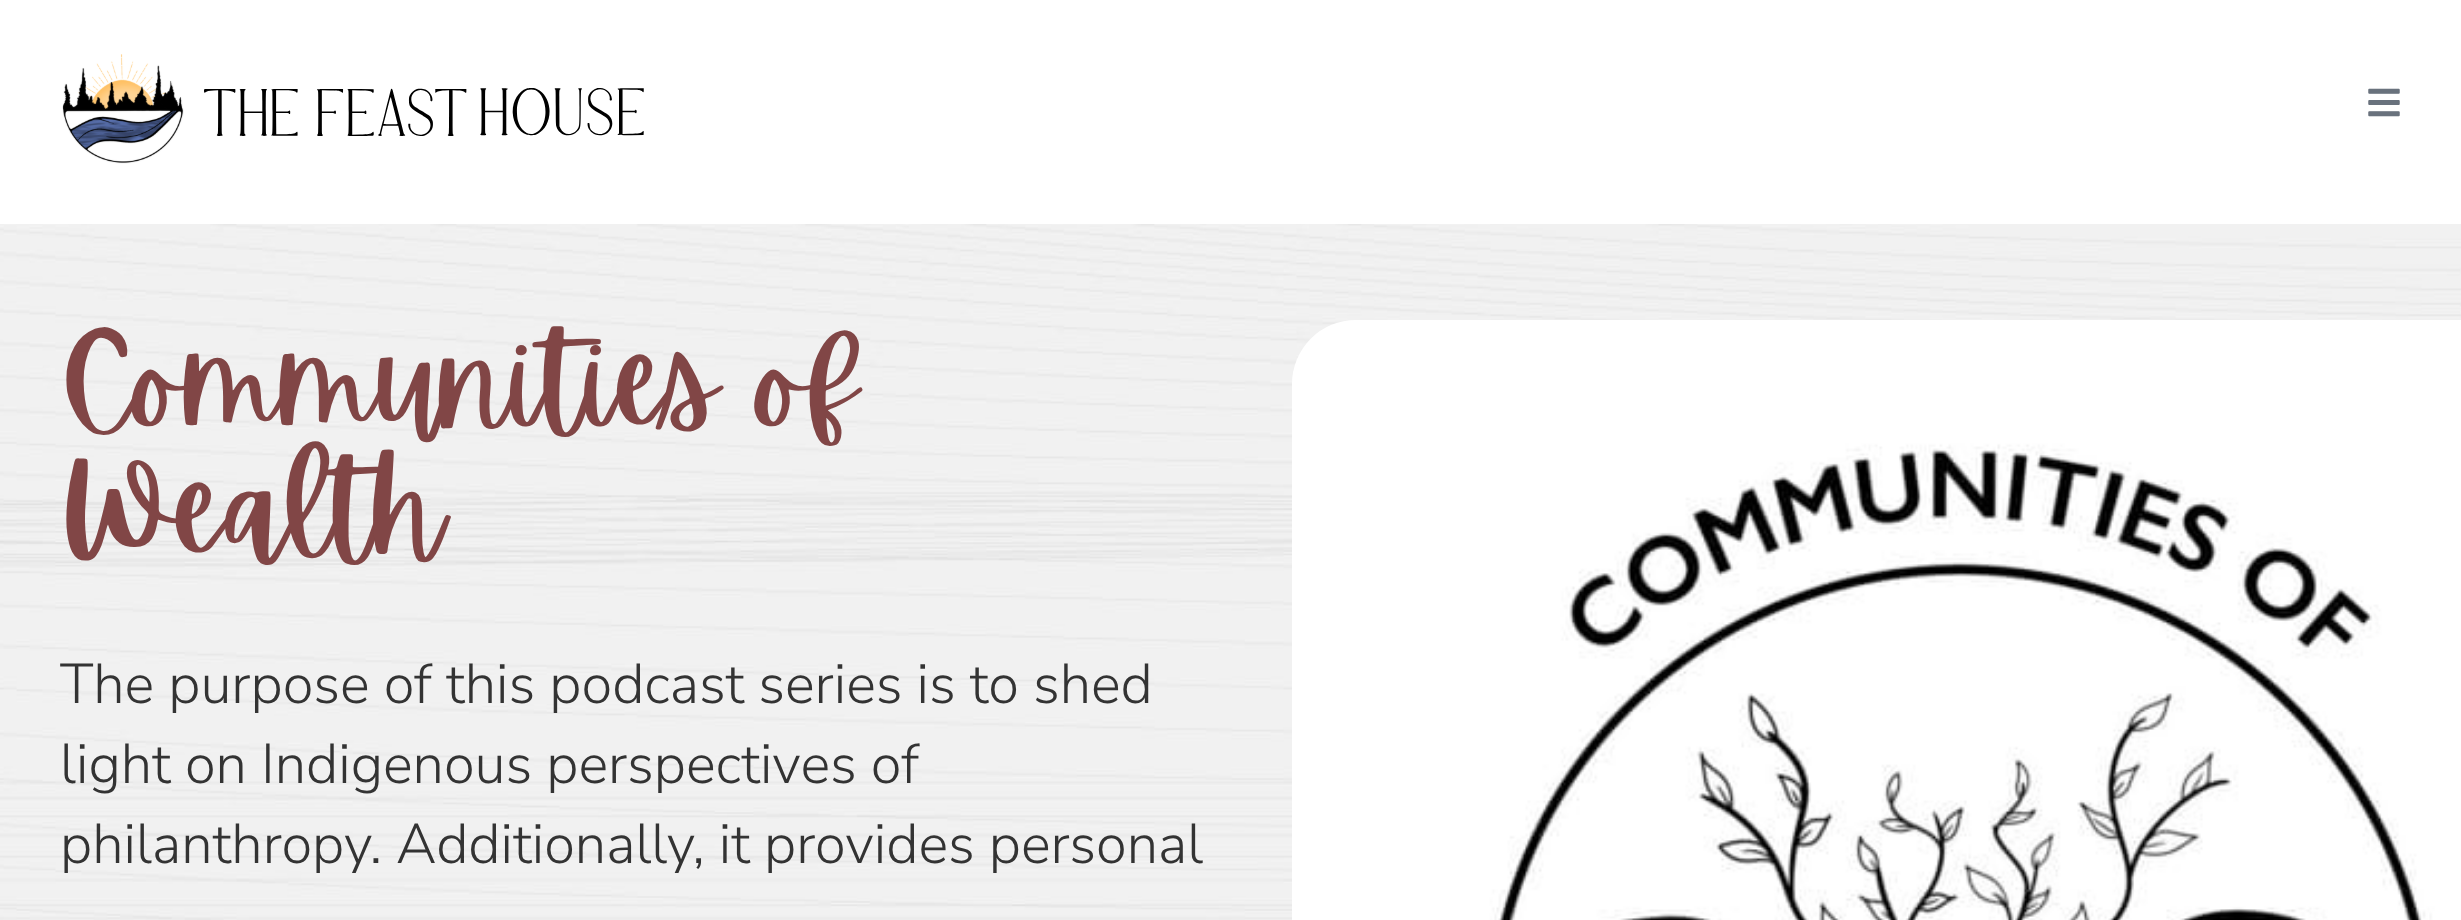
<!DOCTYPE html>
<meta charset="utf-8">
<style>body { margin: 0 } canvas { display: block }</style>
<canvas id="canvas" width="2461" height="920"></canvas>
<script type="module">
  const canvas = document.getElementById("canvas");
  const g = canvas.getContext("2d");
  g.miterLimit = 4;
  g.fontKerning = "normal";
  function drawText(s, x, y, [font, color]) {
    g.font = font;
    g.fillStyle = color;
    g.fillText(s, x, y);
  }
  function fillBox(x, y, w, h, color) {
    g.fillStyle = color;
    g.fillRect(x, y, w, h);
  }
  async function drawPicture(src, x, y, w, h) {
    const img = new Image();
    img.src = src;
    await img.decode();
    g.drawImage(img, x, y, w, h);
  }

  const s1 = ["128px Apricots", "#814646"];
  const s2 = ["300 56px Nunito Sans", "#333333"];

  fillBox(0, 0, 2461, 920, "#FFFFFF");
  await drawPicture("pic1.png", 62, 54, 582, 110);
  await drawPicture("pic2.png", 2368, 88, 32, 29);
  await drawPicture("pic3.png", 0, 224, 2461, 696);
  drawText("Communities of", 60, 426, s1);
  drawText("Wealth", 60, 554, s1);
  drawText("The purpose of this podcast series is to shed", 60, 703, s2);
  drawText("light on Indigenous perspectives of", 60, 783, s2);
  drawText("philanthropy. Additionally, it provides personal", 60, 863, s2);
  await drawPicture("pic4.png", 1292, 320, 1169, 600);
</script>
